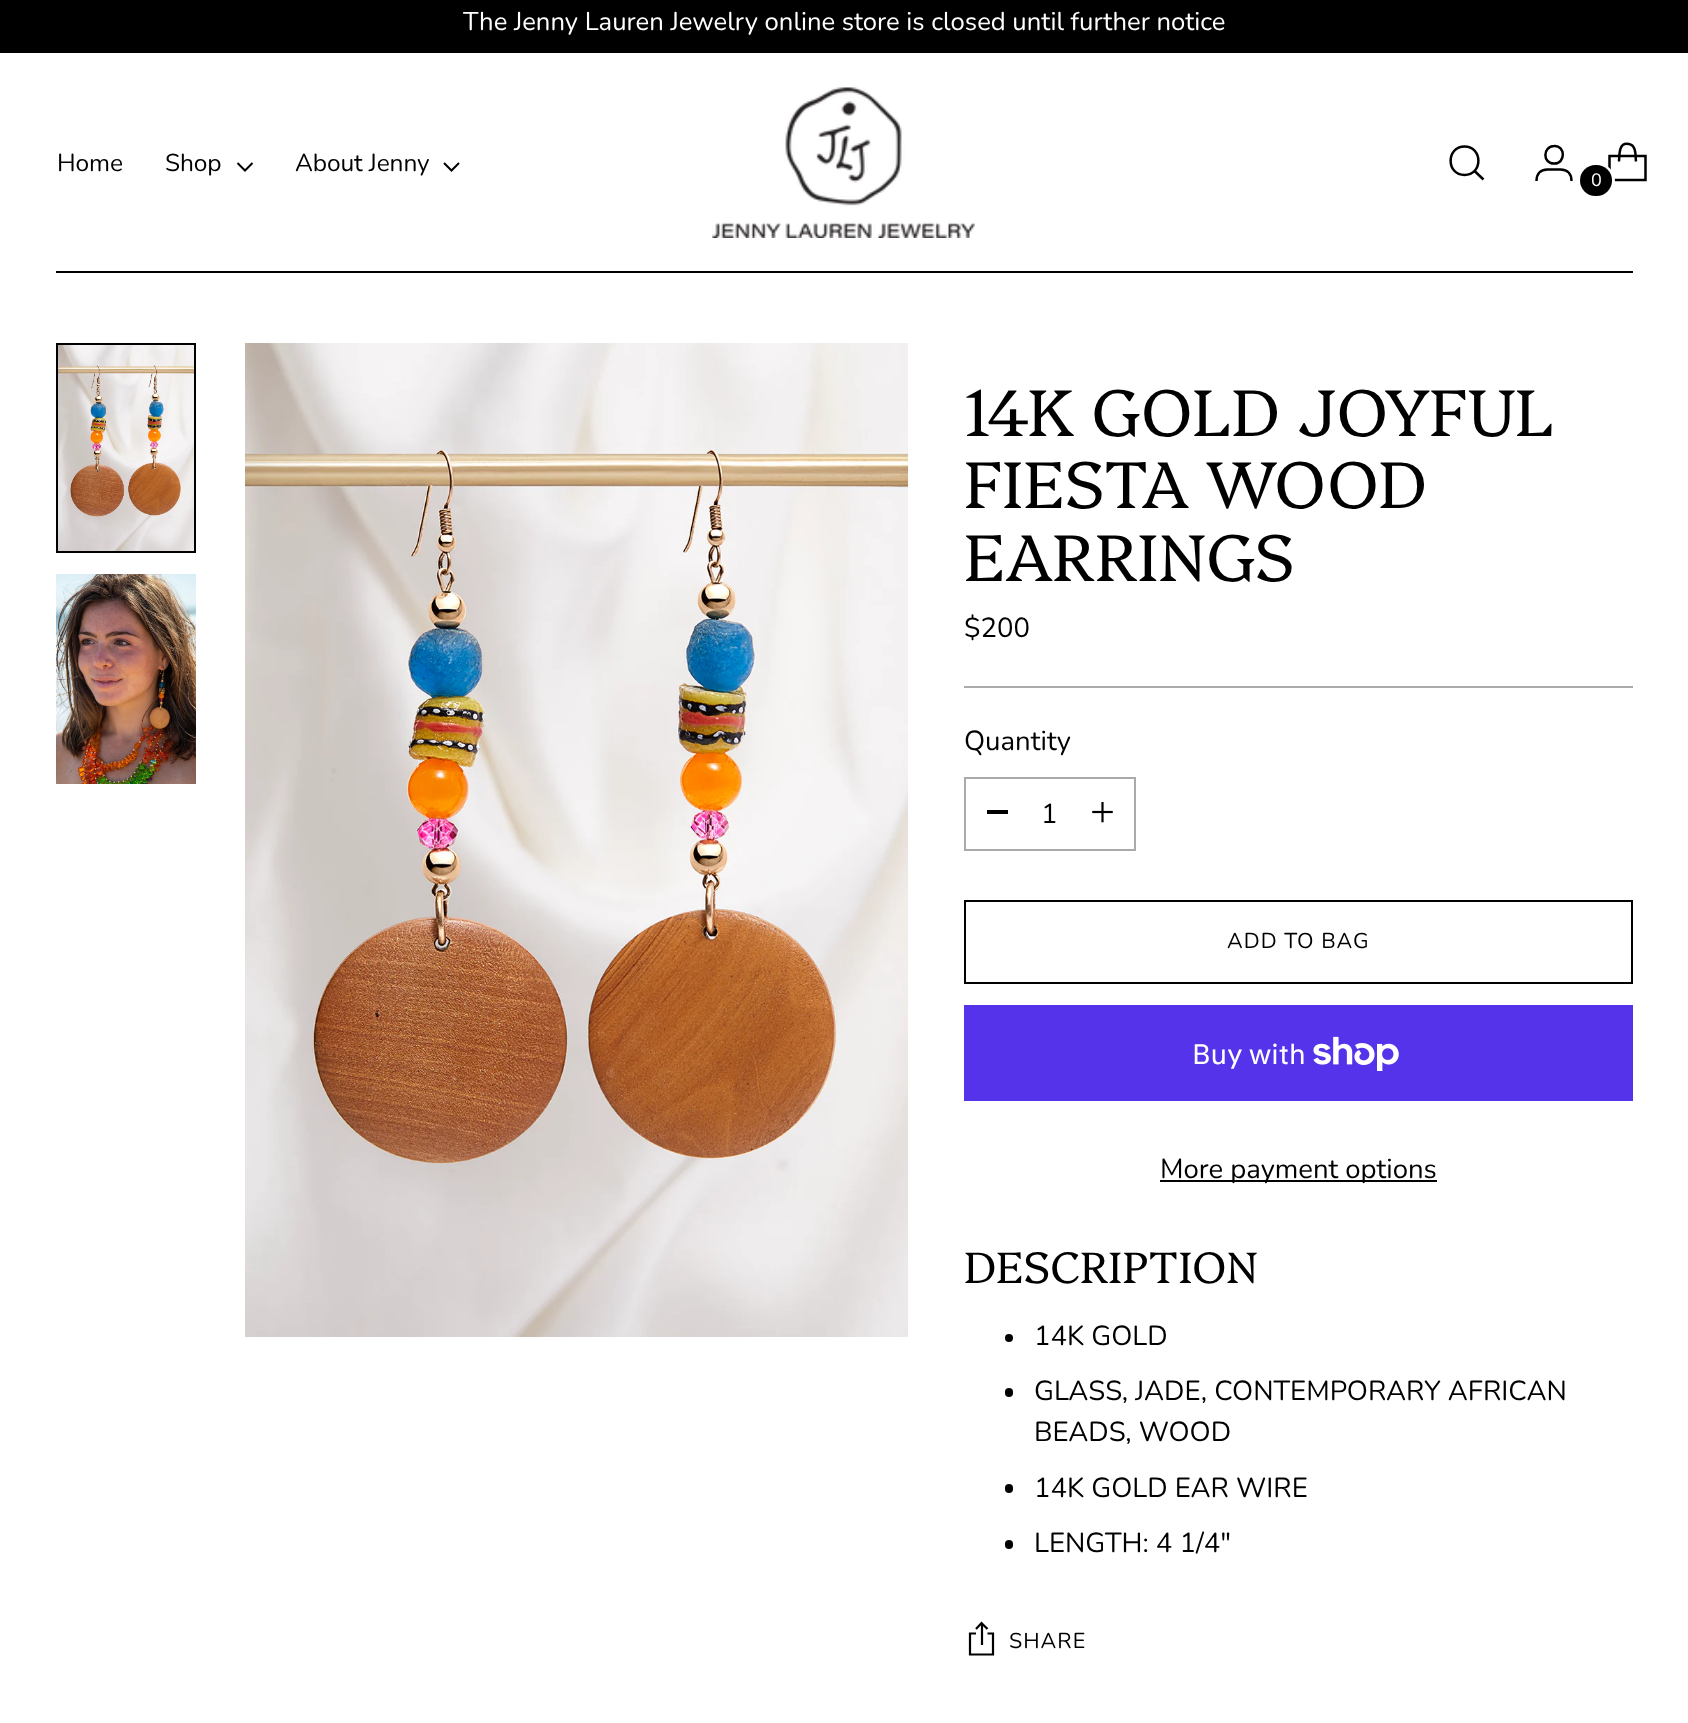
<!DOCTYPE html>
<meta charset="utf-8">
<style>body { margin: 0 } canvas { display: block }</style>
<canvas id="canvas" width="1688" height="1723"></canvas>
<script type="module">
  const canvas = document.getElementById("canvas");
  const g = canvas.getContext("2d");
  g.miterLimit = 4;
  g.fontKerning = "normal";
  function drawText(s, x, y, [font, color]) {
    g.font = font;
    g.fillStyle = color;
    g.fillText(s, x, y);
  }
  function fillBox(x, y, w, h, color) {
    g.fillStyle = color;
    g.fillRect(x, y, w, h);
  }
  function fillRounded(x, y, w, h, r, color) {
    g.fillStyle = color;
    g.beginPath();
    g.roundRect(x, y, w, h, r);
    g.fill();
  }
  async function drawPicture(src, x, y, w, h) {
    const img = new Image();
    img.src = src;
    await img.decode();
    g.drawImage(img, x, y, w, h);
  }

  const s1 = ["25.65px Nunito", "#FFFFFF"];
  const s2 = ["24.5px Nunito", "#000000"];
  const s3 = ["18px Nunito", "#FFFFFF"];
  const s4 = ["300 66px Platypi", "#000000"];
  const s5 = ["27.5px Nunito", "#000000"];
  const s6 = ["21.5px Nunito", "#000000"];
  const s7 = ["28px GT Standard", "#FFFFFF"];
  const s8 = ["300 44px Platypi", "#000000"];

  fillBox(0, 0, 1688, 1723, "#FFFFFF");
  fillBox(0, 0, 1688, 53, "#000000");
  drawText("The Jenny Lauren Jewelry online store is closed until further notice", 463, 30, s1);
  fillBox(56, 271, 1577, 2, "#000000");
  g.letterSpacing = "-0.1px";
  drawText("Home", 57, 171, s2);
  drawText("Shop", 165, 171, s2);
  g.beginPath();
  g.moveTo(237.5, 163);
  g.lineTo(245, 170.5);
  g.lineTo(252.5, 163);
  g.strokeStyle = "#000000";
  g.lineWidth = 2;
  g.stroke();
  drawText("About Jenny", 295, 171, s2);
  g.beginPath();
  g.moveTo(444, 163);
  g.lineTo(451.5, 170.5);
  g.lineTo(459, 163);
  g.stroke();
  await drawPicture("pic1.png", 712, 87, 263, 151);
  g.beginPath();
  g.moveTo(1464.5, 175);
  g.bezierCurveTo(1483, 175, 1483, 146.5, 1464.5, 146.5);
  g.bezierCurveTo(1446, 146.5, 1446, 175, 1464.5, 175);
  g.closePath();
  g.lineWidth = 2.5;
  g.lineCap = "round";
  g.stroke();
  g.beginPath();
  g.moveTo(1474.5, 171);
  g.lineTo(1483.5, 179.5);
  g.lineCap = "butt";
  g.stroke();
  g.beginPath();
  g.moveTo(1554, 163.5);
  g.bezierCurveTo(1566, 164, 1565.5, 145, 1554, 146);
  g.bezierCurveTo(1542.5, 146.5, 1542.5, 163.5, 1554, 163.5);
  g.closePath();
  g.moveTo(1536.5, 181);
  g.bezierCurveTo(1536.5, 174.5, 1540, 169.5, 1547.5, 169.5);
  g.lineTo(1560.5, 169.5);
  g.bezierCurveTo(1568, 169.5, 1571.5, 174.5, 1571.5, 181);
  g.stroke();
  g.beginPath();
  g.moveTo(1636, 161.5);
  g.bezierCurveTo(1635.5, 157.5, 1636, 153, 1634.5, 149);
  g.bezierCurveTo(1633.5, 146.5, 1632, 144.5, 1629, 144);
  g.bezierCurveTo(1618.5, 141.5, 1619.5, 155, 1619, 161.5);
  g.lineJoin = "bevel";
  g.stroke();
  g.beginPath();
  g.moveTo(1645.5, 180);
  g.lineTo(1645.5, 156);
  g.lineTo(1609.5, 156);
  g.lineTo(1609.5, 180);
  g.closePath();
  g.lineJoin = "miter";
  g.stroke();
  g.beginPath();
  g.roundRect(1580.5, 164.5, 33, 34, 16.5);
  g.strokeStyle = "#FFFFFF";
  g.lineWidth = 3;
  g.stroke();
  fillRounded(1580, 165, 32, 31, 15.5, "#000000");
  g.letterSpacing = "0px";
  drawText("0", 1591, 186, s3);
  await drawPicture("pic2.png", 58, 345, 136, 206);
  g.strokeStyle = "#000000";
  g.lineWidth = 2;
  g.strokeRect(57, 344, 138, 208);
  await drawPicture("pic3.png", 56, 574, 140, 210);
  await drawPicture("pic4.png", 245, 343, 664, 994);
  fillBox(964, 686, 669, 2, "#AAAAAA");
  drawText("14K GOLD JOYFUL", 964, 436, s4);
  drawText("FIESTA WOOD", 964, 508, s4);
  drawText("EARRINGS", 964, 581, s4);
  drawText("$200", 964, 637, s5);
  drawText("Quantity", 964, 750, s5);
  g.strokeStyle = "#AAAAAA";
  g.strokeRect(965, 778, 170, 72);
  fillBox(987, 810, 21, 4, "#000000");
  drawText("1", 1041, 823, s5);
  await drawPicture("pic5.png", 1092, 802, 21, 21);
  g.strokeStyle = "#000000";
  g.strokeRect(965, 901, 667, 82);
  g.letterSpacing = "1px";
  drawText("ADD TO BAG", 1227, 948, s6);
  fillBox(964, 1005, 669, 96, "#5433EB");
  g.letterSpacing = "0px";
  drawText("Buy with", 1192, 1064, s7);
  await drawPicture("pic6.png", 1313, 1036, 86, 35);
  fillBox(1160, 1180, 277, 2, "#000000");
  drawText("More payment options", 1160, 1178, s5);
  drawText("DESCRIPTION", 964, 1283, s8);
  g.beginPath();
  g.arc(1009, 1338, 4, 0, Math.PI * 2);
  g.fill();
  drawText("14K GOLD", 1034, 1345, s5);
  fillRounded(1005, 1388, 8, 9, 4, "#000000");
  drawText("GLASS, JADE, CONTEMPORARY AFRICAN", 1034, 1400, s5);
  drawText("BEADS, WOOD", 1034, 1441, s5);
  fillRounded(1005, 1484, 8, 9, 4, "#000000");
  drawText("14K GOLD EAR WIRE", 1034, 1497, s5);
  fillRounded(1005, 1540, 8, 9, 4, "#000000");
  drawText("LENGTH: 4 1/4\"", 1034, 1552, s5);
  g.beginPath();
  g.moveTo(976, 1633.5);
  g.lineTo(970, 1633.5);
  g.lineTo(970, 1654.5);
  g.lineTo(993, 1654.5);
  g.lineTo(993, 1633.5);
  g.lineTo(987.5, 1633.5);
  g.moveTo(982, 1645);
  g.lineTo(982, 1624);
  g.moveTo(987.5, 1629);
  g.lineTo(981.5, 1623);
  g.lineTo(976, 1629);
  g.lineWidth = 2.2;
  g.stroke();
  g.letterSpacing = "1px";
  drawText("SHARE", 1009, 1648, s6);
</script>
